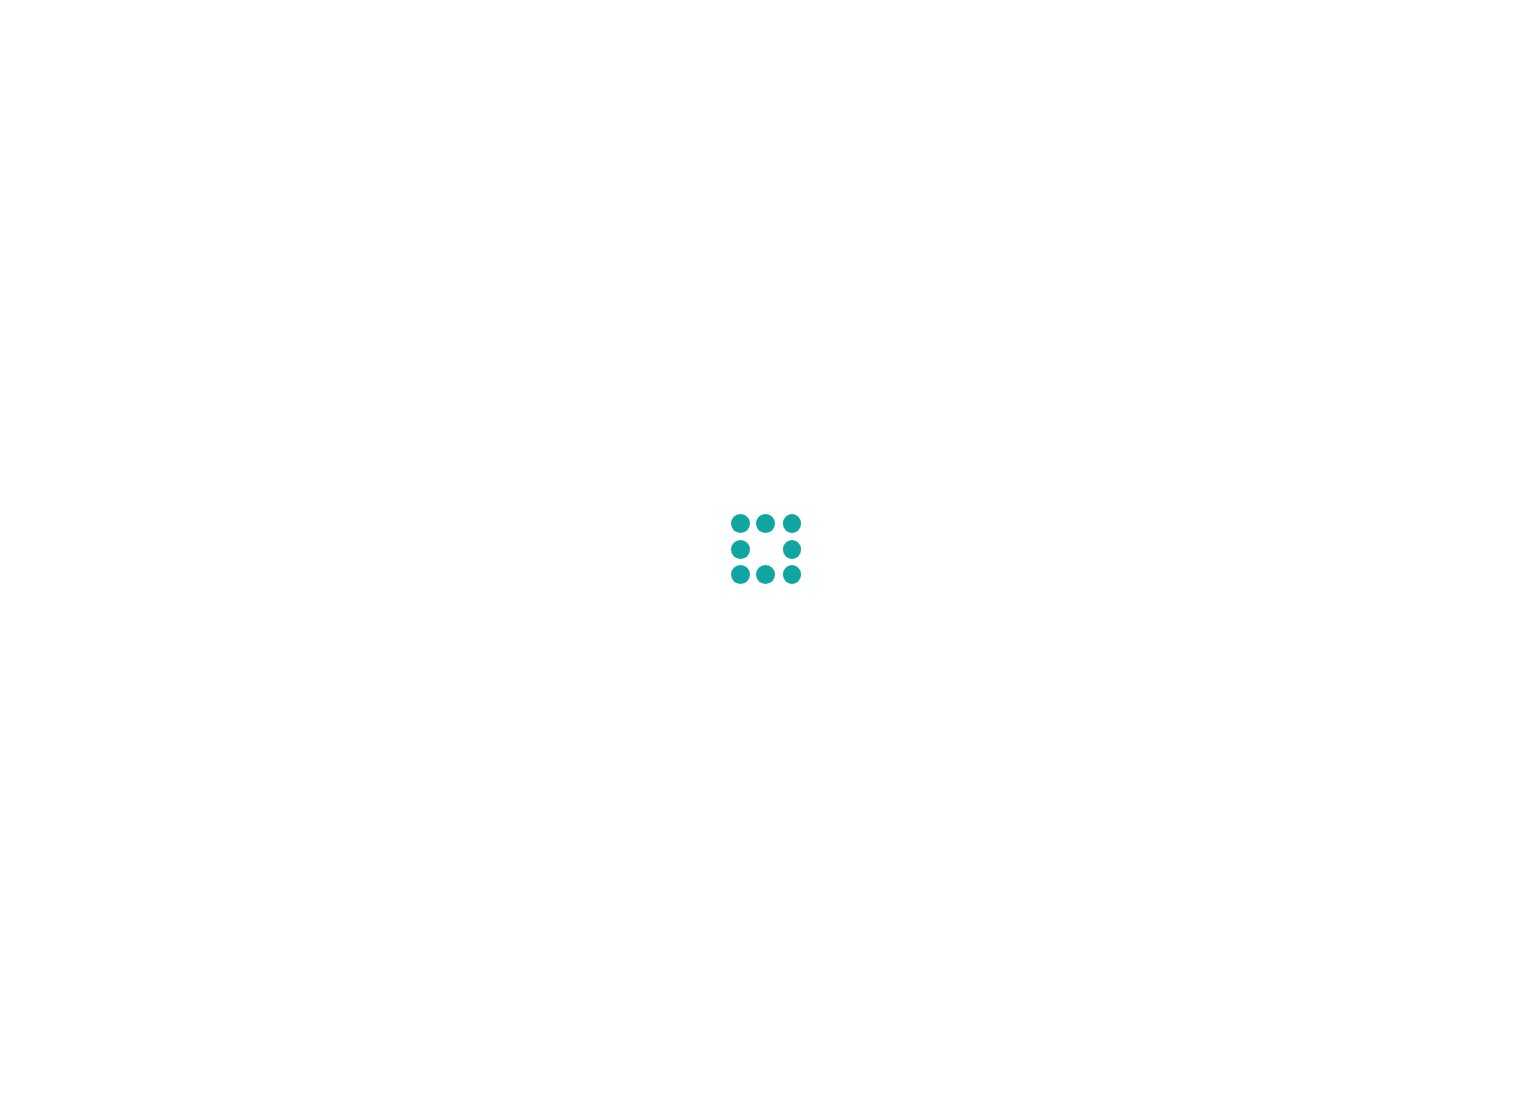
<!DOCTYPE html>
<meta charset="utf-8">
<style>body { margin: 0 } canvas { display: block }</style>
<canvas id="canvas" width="1532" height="1104"></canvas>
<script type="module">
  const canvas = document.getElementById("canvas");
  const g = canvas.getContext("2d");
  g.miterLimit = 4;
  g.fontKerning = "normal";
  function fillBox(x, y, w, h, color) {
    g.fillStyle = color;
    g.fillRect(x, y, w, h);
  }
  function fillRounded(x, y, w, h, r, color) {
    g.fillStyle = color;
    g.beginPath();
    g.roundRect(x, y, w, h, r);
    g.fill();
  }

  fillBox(0, 0, 1532, 1104, "#FFFFFF");
  g.fillStyle = "#10A5A0";
  g.beginPath();
  g.arc(740.5, 523.5, 9.5, 0, Math.PI * 2);
  g.fill();
  g.beginPath();
  g.arc(765.5, 523.5, 9.5, 0, Math.PI * 2);
  g.fill();
  fillRounded(783, 514, 18, 19, 9, "#10A5A0");
  g.beginPath();
  g.arc(740.5, 549.5, 9.5, 0, Math.PI * 2);
  g.fill();
  fillRounded(783, 540, 18, 19, 9, "#10A5A0");
  g.beginPath();
  g.arc(740.5, 574.5, 9.5, 0, Math.PI * 2);
  g.fill();
  g.beginPath();
  g.arc(765.5, 574.5, 9.5, 0, Math.PI * 2);
  g.fill();
  fillRounded(783, 565, 18, 19, 9, "#10A5A0");
</script>
